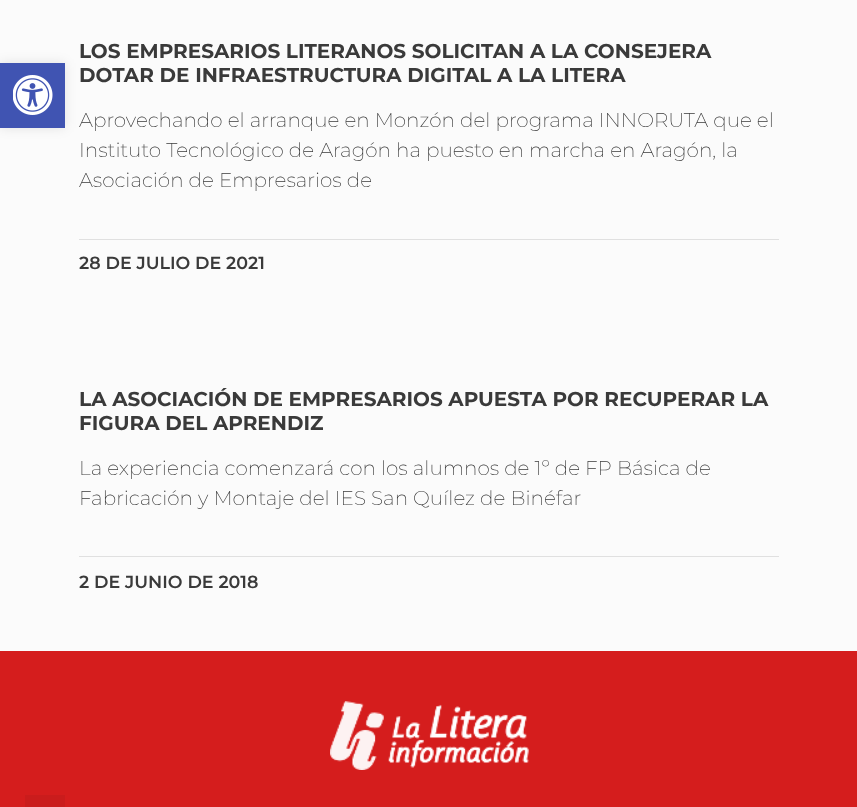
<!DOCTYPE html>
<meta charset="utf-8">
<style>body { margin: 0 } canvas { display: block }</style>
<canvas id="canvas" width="857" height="807"></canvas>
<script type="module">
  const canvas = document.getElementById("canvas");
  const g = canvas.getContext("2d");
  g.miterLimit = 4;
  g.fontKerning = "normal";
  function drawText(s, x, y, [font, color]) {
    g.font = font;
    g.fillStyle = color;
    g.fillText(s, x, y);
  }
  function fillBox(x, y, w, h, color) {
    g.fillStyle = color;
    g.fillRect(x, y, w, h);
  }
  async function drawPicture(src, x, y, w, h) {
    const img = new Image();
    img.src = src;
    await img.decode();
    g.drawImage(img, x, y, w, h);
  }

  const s1 = ["bold 20px Montserrat", "#3A3A3A"];
  const s2 = ["200 20px Montserrat", "#3A3A3A"];
  const s3 = ["600 17.5px Montserrat", "#3A3A3A"];

  fillBox(0, 0, 857, 807, "#FBFBFB");
  g.fillStyle = "rgba(0, 0, 0, 0.1)";
  g.filter = "blur(6px)";
  g.beginPath();
  g.rect(0, 63, 65, 65);
  g.fill();
  g.filter = "none";
  fillBox(0, 63, 65, 65, "#4054B2");
  await drawPicture("pic1.png", 13, 75, 40, 40);
  drawText("LOS EMPRESARIOS LITERANOS SOLICITAN A LA CONSEJERA", 79, 58, s1);
  drawText("DOTAR DE INFRAESTRUCTURA DIGITAL A LA LITERA", 79, 82, s1);
  drawText("Aprovechando el arranque en Monzón del programa INNORUTA que el", 79, 127, s2);
  drawText("Instituto Tecnológico de Aragón ha puesto en marcha en Aragón, la", 79, 157, s2);
  drawText("Asociación de Empresarios de", 79, 187, s2);
  fillBox(79, 239, 700, 1, "#E0E0E0");
  drawText("28 DE JULIO DE 2021", 79, 269, s3);
  drawText("LA ASOCIACIÓN DE EMPRESARIOS APUESTA POR RECUPERAR LA", 79, 406, s1);
  drawText("FIGURA DEL APRENDIZ", 79, 430, s1);
  drawText("La experiencia comenzará con los alumnos de 1º de FP Básica de", 79, 475, s2);
  drawText("Fabricación y Montaje del IES San Quílez de Binéfar", 79, 505, s2);
  fillBox(79, 556, 700, 1, "#E0E0E0");
  drawText("2 DE JUNIO DE 2018", 79, 588, s3);
  fillBox(0, 651, 857, 156, "#D51D1D");
  await drawPicture("pic2.png", 330, 701, 199, 69);
  fillBox(25, 795, 40, 12, "#CA1C1C");
</script>
